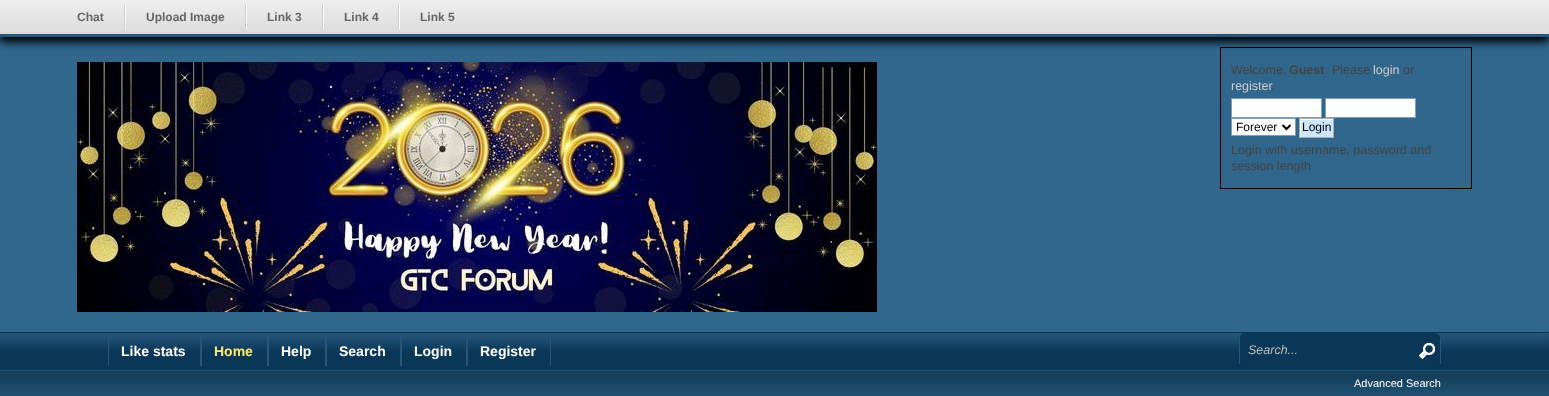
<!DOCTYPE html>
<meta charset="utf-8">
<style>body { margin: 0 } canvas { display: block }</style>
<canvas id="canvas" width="1549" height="396"></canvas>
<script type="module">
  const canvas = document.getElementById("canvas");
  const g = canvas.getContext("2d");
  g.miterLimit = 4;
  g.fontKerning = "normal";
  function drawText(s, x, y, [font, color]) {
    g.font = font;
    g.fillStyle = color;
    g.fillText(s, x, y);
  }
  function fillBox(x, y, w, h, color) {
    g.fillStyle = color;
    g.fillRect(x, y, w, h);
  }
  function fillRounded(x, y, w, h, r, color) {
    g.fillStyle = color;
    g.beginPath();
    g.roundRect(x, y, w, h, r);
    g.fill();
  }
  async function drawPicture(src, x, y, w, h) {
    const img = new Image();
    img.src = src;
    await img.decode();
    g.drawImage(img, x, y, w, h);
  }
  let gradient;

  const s1 = ["bold 12px Liberation Sans", "#656565"];
  const s2 = ["12.5px Liberation Sans", "#444444"];
  const s3 = ["bold 12.5px Liberation Sans", "#444444"];
  const s4 = ["12.5px Liberation Sans", "#CCCCCC"];
  const s5 = ["12px Liberation Sans", "#000000"];
  const s6 = ["bold 14px Liberation Sans", "#FFFFFF"];
  const s7 = ["bold 14px Liberation Sans", "#FFE777"];
  const s8 = ["italic 12.5px Liberation Sans", "#BBBBBB"];
  const s9 = ["11px Liberation Sans", "#FFFFFF"];

  fillBox(0, 0, 1549, 396, "#31678D");
  g.strokeStyle = "#000000";
  g.strokeRect(1220.5, 47.5, 251, 141);
  g.fillStyle = "#000000";
  g.filter = "blur(4px)";
  g.beginPath();
  g.rect(0, 5, 1549, 37);
  g.fill();
  g.filter = "none";
  gradient = g.createLinearGradient(775, 0, 775, 34);
  gradient.addColorStop(0, "#EEEEEE");
  gradient.addColorStop(1, "#DBDBDB");
  g.fillStyle = gradient;
  g.fillRect(0, 0, 1549, 34);
  fillBox(0, 34, 1549, 3, "#25577B");
  fillBox(124, 5, 1, 24, "#CCCCCC");
  drawText("Chat", 77, 21, s1);
  fillBox(245, 5, 1, 24, "#CCCCCC");
  fillBox(125, 5, 1, 24, "#FFFFFF");
  drawText("Upload Image", 146, 21, s1);
  fillBox(322, 5, 1, 24, "#CCCCCC");
  fillBox(246, 5, 1, 24, "#FFFFFF");
  drawText("Link 3", 267, 21, s1);
  fillBox(398, 5, 1, 24, "#CCCCCC");
  fillBox(323, 5, 1, 24, "#FFFFFF");
  drawText("Link 4", 344, 21, s1);
  fillBox(399, 5, 1, 24, "#FFFFFF");
  drawText("Link 5", 420, 21, s1);
  await drawPicture("pic1.png", 77, 62, 800, 250);
  drawText("Welcome,", 1231, 74, s2);
  drawText("Guest", 1289, 74, s3);
  drawText(". Please", 1325, 74, s2);
  drawText("login", 1373, 74, s4);
  drawText("or", 1403, 74, s2);
  drawText("register", 1231, 90, s4);
  drawText(".", 1271, 90, s2);
  g.fillStyle = "#FFFFFF";
  g.beginPath();
  g.rect(1231.5, 98.5, 90, 19);
  g.fill();
  g.strokeStyle = "#7F9DB9";
  g.stroke();
  g.beginPath();
  g.rect(1325.5, 98.5, 90, 19);
  g.fill();
  g.stroke();
  g.beginPath();
  g.rect(1231.5, 118.5, 64, 17);
  g.fill();
  g.stroke();
  g.beginPath();
  g.moveTo(1282.5, 125);
  g.lineTo(1286.5, 129);
  g.lineTo(1290.5, 125);
  g.strokeStyle = "#000000";
  g.lineWidth = 2;
  g.stroke();
  drawText("Forever", 1236, 131, s5);
  await drawPicture("pic2.png", 1300, 119, 33, 18);
  g.strokeStyle = "#AAAAAA";
  g.lineWidth = 1;
  g.strokeRect(1299.5, 118.5, 34, 19);
  drawText("Login", 1302, 131, s5);
  drawText("Login with username, password and", 1231, 154, s2);
  drawText("session length", 1231, 170, s2);
  gradient = g.createLinearGradient(775, 333, 775, 371);
  gradient.addColorStop(0, "#25577B");
  gradient.addColorStop(0.5, "#0A3757");
  gradient.addColorStop(0.95, "#0A3757");
  gradient.addColorStop(1, "#25577B");
  g.fillStyle = gradient;
  g.fillRect(0, 333, 1549, 38);
  fillBox(0, 332, 1549, 1, "#0B334F");
  fillBox(200, 333, 2, 33, "#25577B");
  fillBox(108, 333, 1, 33, "#25577B");
  drawText("Like stats", 121, 356, s6);
  fillBox(267, 333, 2, 33, "#25577B");
  drawText("Home", 214, 356, s7);
  fillBox(325, 333, 2, 33, "#25577B");
  drawText("Help", 281, 356, s6);
  fillBox(400, 333, 2, 33, "#25577B");
  drawText("Search", 339, 356, s6);
  fillBox(466, 333, 2, 33, "#25577B");
  drawText("Login", 414, 356, s6);
  fillBox(550, 333, 1, 33, "#25577B");
  drawText("Register", 480, 356, s6);
  gradient = g.createLinearGradient(775, 371, 775, 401);
  gradient.addColorStop(0, "#163F5B");
  gradient.addColorStop(0.2, "#163F5B");
  gradient.addColorStop(0.85, "#215376");
  gradient.addColorStop(1, "#163F5B");
  g.fillStyle = gradient;
  g.fillRect(0, 371, 1549, 25);
  fillRounded(1239, 333, 202, 34, 7, "#0A3757");
  fillBox(1440, 337, 1, 27, "#25577B");
  fillBox(1239, 337, 1, 27, "#25577B");
  fillBox(1243, 333, 2, 1, "#0A3757");
  drawText("Search...", 1248, 354, s8);
  await drawPicture("pic3.png", 1419, 343, 16, 16);
  drawText("Advanced Search", 1354, 387, s9);
</script>
